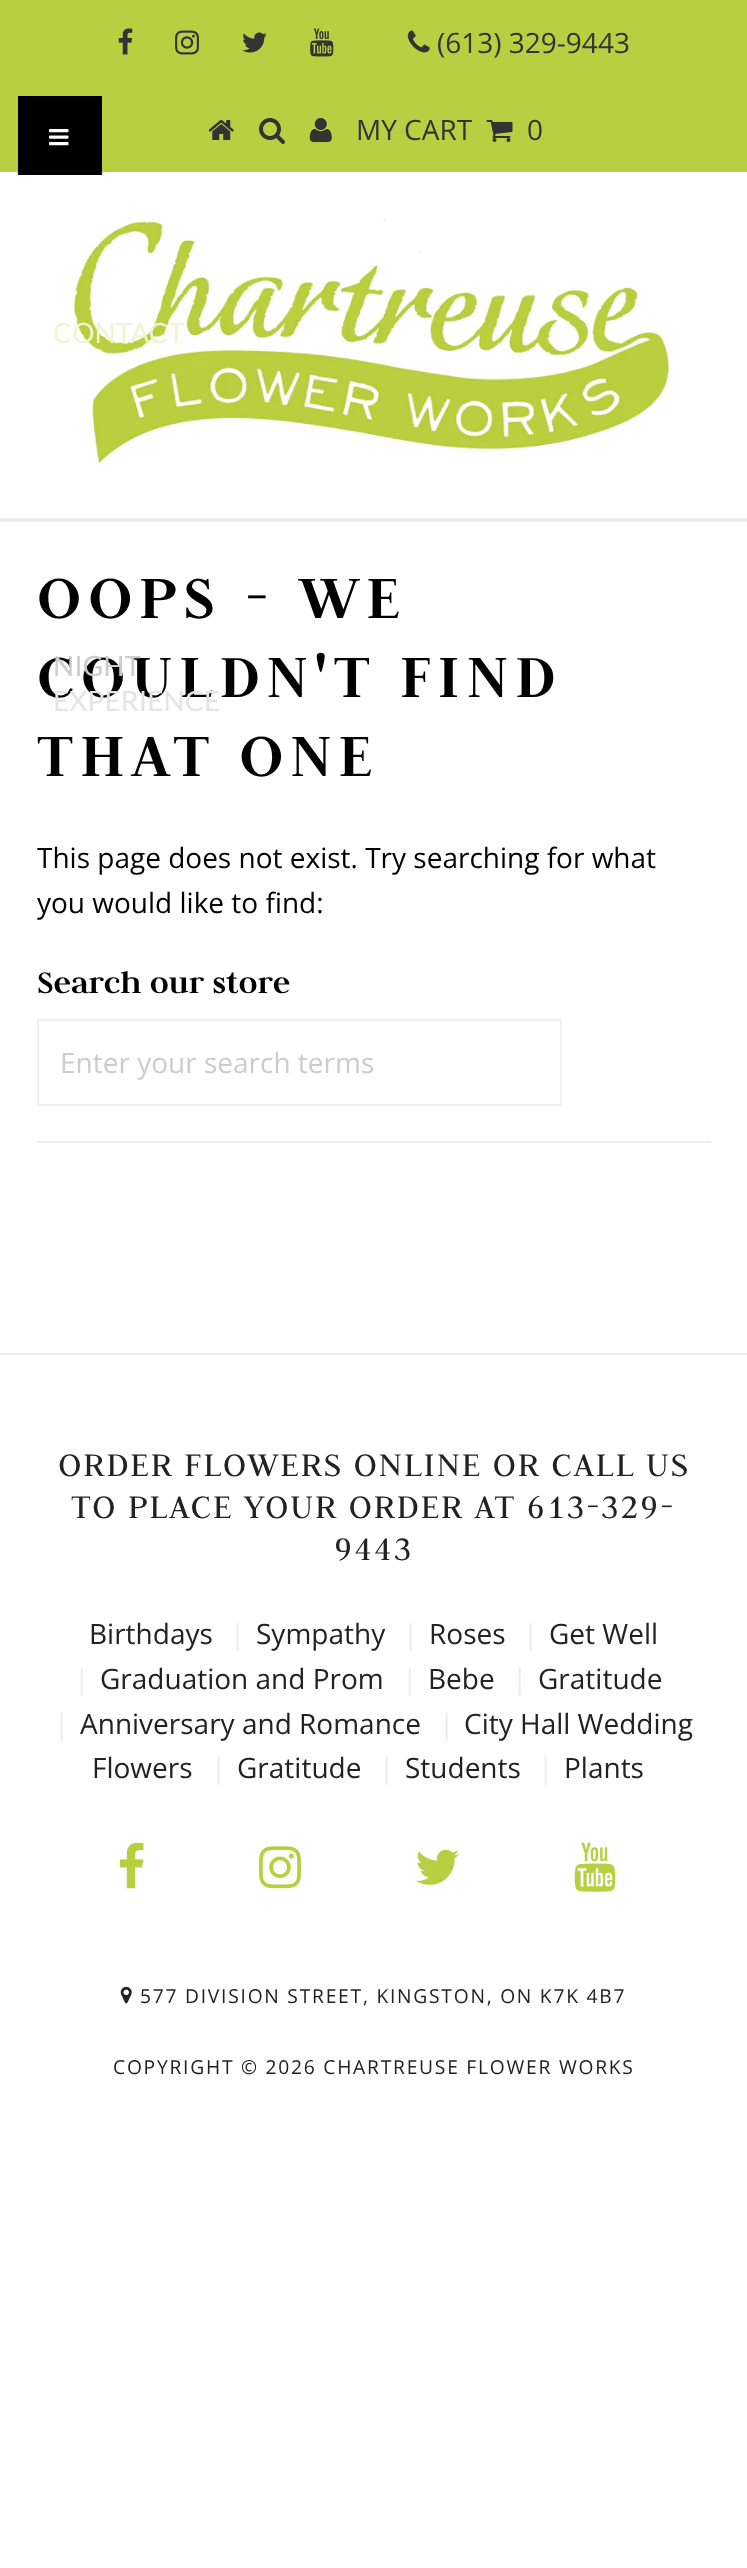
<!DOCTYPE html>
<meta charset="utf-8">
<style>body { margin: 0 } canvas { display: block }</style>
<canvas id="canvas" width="747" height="2568"></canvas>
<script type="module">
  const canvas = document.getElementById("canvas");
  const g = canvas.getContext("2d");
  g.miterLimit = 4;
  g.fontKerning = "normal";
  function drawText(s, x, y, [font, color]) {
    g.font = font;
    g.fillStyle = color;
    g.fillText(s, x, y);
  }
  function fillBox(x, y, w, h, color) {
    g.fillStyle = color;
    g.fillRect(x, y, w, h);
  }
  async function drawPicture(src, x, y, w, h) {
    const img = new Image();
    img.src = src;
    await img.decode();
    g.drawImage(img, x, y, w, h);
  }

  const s1 = ["28px Open Sans", "#333333"];
  const s2 = ["28px Lato", "#EFF4D3"];
  const s3 = ["bold 66.5px Judson", "#000000"];
  const s4 = ["28px Lato", "#CCCCCC"];
  const s5 = ["28px Lato", "#E4E4E4"];
  const s6 = ["28px Open Sans", "#000000"];
  const s7 = ["bold 35px Judson", "#000000"];
  const s8 = ["28px Open Sans", "#CCCCCC"];
  const s9 = ["36.75px Judson", "#222222"];
  const s10 = ["28px Open Sans", "#222222"];
  const s11 = ["28px Open Sans", "#EDEDED"];
  const s12 = ["19.25px Open Sans", "#222222"];

  fillBox(0, 0, 747, 2568, "#FFFFFF");
  fillBox(0, 0, 747, 172, "#B8CF41");
  await drawPicture("pic1.png", 118, 28, 15, 27);
  await drawPicture("pic2.png", 175, 30, 24, 25);
  await drawPicture("pic3.png", 242, 32, 25, 21);
  await drawPicture("pic4.png", 310, 28, 24, 29);
  await drawPicture("pic5.png", 407, 30, 23, 23);
  drawText("(613) 329-9443", 437, 53, s1);
  await drawPicture("pic6.png", 208, 120, 26, 20);
  await drawPicture("pic7.png", 259, 118, 26, 26);
  await drawPicture("pic8.png", 309, 118, 23, 24);
  drawText("MY CART", 356, 140, s1);
  await drawPicture("pic9.png", 486, 120, 27, 22);
  drawText("0", 527, 140, s1);
  await drawPicture("pic10.png", 73, 217, 597, 247);
  fillBox(0, 518, 747, 4, "#EDEDED");
  fillBox(18, 96, 84, 79, "#000000");
  await drawPicture("pic11.png", 49, 129, 20, 17);
  drawText("CONTACT", 53, 343, s2);
  g.letterSpacing = "7px";
  drawText("COULDN'T FIND", 37, 697, s3);
  g.letterSpacing = "0px";
  drawText("NIGHT", 53, 676, s4);
  drawText("EXPERIENCE", 53, 711, s5);
  g.letterSpacing = "7px";
  drawText("OOPS - WE", 37, 618, s3);
  drawText("THAT ONE", 37, 776, s3);
  g.letterSpacing = "0px";
  drawText("This page does not exist. Try searching for what", 37, 868, s6);
  drawText("you would like to find:", 37, 913, s6);
  fillBox(37, 1141, 674, 2, "#F0F0F0");
  drawText("Search our store", 37, 993, s7);
  g.strokeStyle = "#F0F0F0";
  g.lineWidth = 2;
  g.strokeRect(38, 1020, 523, 85);
  drawText("Enter your search terms", 60, 1073, s8);
  fillBox(0, 1353, 747, 2, "#EDEDED");
  g.letterSpacing = "1.75px";
  drawText("ORDER FLOWERS ONLINE OR CALL US", 58, 1476, s9);
  drawText("TO PLACE YOUR ORDER AT 613-329-", 71, 1518, s9);
  drawText("9443", 334, 1560, s9);
  g.letterSpacing = "0px";
  drawText("Birthdays", 89, 1644, s10);
  drawText("|", 230, 1644, s11);
  drawText("Sympathy", 256, 1644, s10);
  drawText("|", 403, 1644, s11);
  drawText("Roses", 429, 1644, s10);
  drawText("|", 523, 1644, s11);
  drawText("Get Well", 549, 1644, s10);
  drawText("|", 74, 1689, s11);
  drawText("Graduation and Prom", 100, 1689, s10);
  drawText("|", 402, 1689, s11);
  drawText("Bebe", 428, 1689, s10);
  drawText("|", 512, 1689, s11);
  drawText("Gratitude", 538, 1689, s10);
  drawText("|", 54, 1734, s11);
  drawText("Anniversary and Romance", 80, 1734, s10);
  drawText("|", 439, 1734, s11);
  drawText("City Hall Wedding", 464, 1734, s10);
  drawText("Flowers", 92, 1778, s10);
  drawText("|", 211, 1778, s11);
  drawText("Gratitude", 237, 1778, s10);
  drawText("|", 379, 1778, s11);
  drawText("Students", 405, 1778, s10);
  drawText("|", 538, 1778, s11);
  drawText("Plants", 564, 1778, s10);
  await drawPicture("pic12.png", 119, 1842, 25, 47);
  await drawPicture("pic13.png", 259, 1846, 42, 43);
  await drawPicture("pic14.png", 416, 1849, 43, 36);
  await drawPicture("pic15.png", 574, 1842, 42, 50);
  await drawPicture("pic16.png", 120, 1986, 12, 18);
  g.letterSpacing = "1.75px";
  drawText("577 DIVISION STREET, KINGSTON, ON K7K 4B7", 140, 2003, s12);
  drawText("COPYRIGHT © 2026 CHARTREUSE FLOWER WORKS", 113, 2074, s12);
</script>
